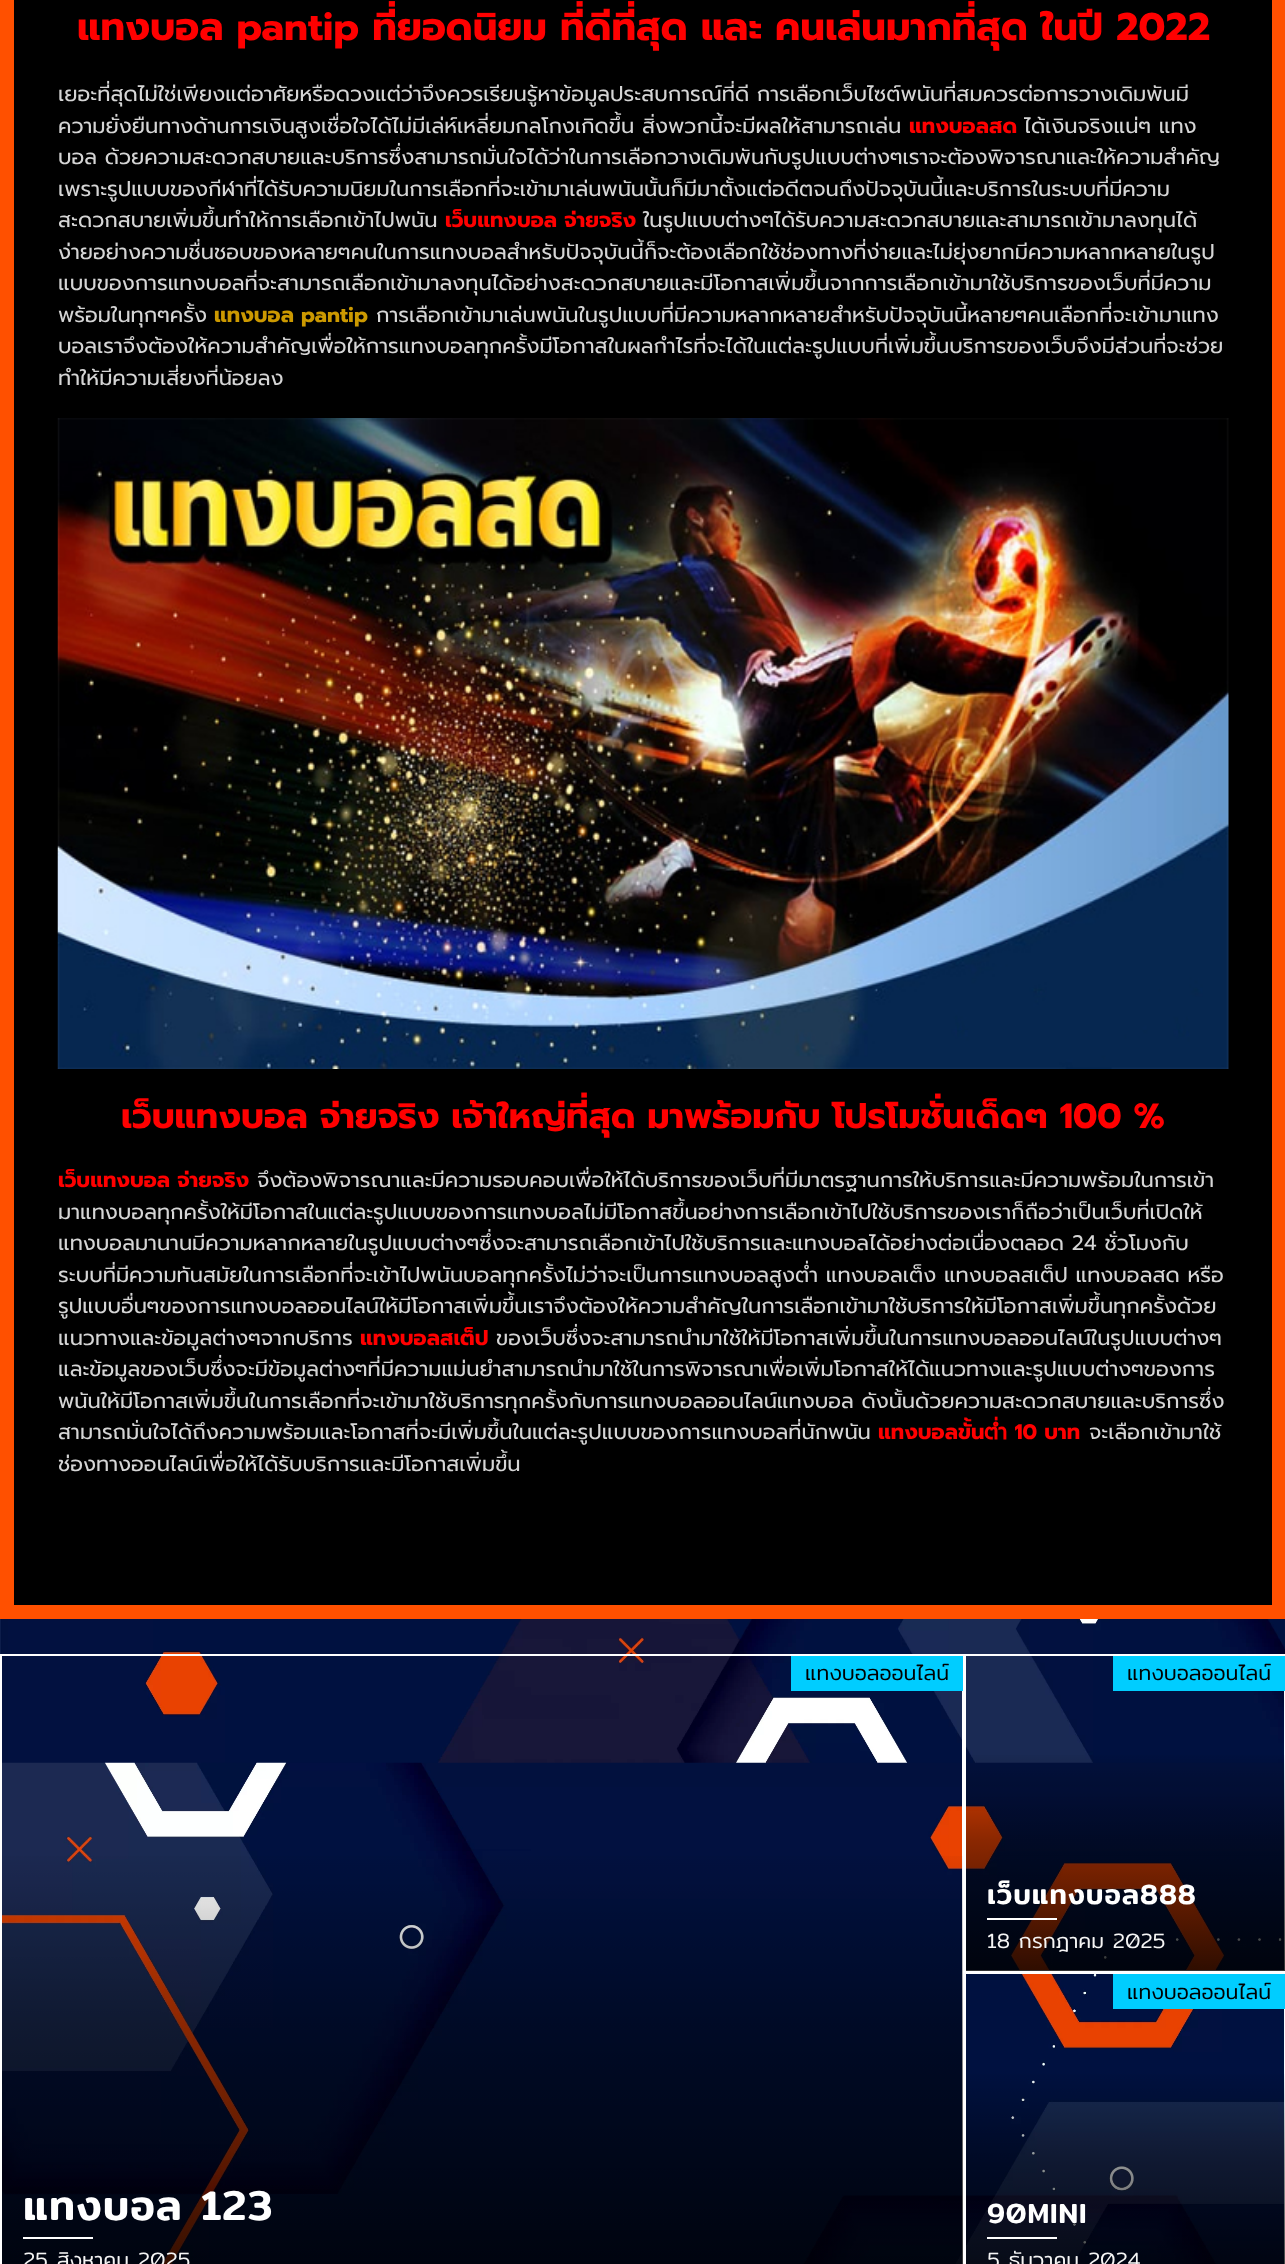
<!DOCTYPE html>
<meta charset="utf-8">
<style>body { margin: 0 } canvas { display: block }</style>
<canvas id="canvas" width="1285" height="2264"></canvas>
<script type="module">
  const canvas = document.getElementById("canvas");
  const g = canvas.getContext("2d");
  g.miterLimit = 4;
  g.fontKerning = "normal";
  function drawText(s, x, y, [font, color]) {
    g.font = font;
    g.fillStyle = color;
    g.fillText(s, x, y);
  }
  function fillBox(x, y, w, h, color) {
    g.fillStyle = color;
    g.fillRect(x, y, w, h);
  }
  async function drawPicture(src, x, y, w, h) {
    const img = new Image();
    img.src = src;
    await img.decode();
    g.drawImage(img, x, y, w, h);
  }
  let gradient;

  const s1 = ["bold 38.5px Prompt", "#FF0000"];
  const s2 = ["21px Prompt", "#D5D5D5"];
  const s3 = ["bold 21px Prompt", "#FF0000"];
  const s4 = ["bold 21px Prompt", "#CC9900"];
  const s5 = ["bold 35px Prompt", "#FF0000"];
  const s6 = ["300 21px Mitr", "#000000"];
  const s7 = ["500 42px Mitr", "#FFFFFF"];
  const s8 = ["300 21px Mitr", "#F5F5F5"];
  const s9 = ["500 28px Mitr", "#FFFFFF"];

  fillBox(0, 0, 1285, 2264, "#FFFFFF");
  await drawPicture("pic1.png", 0, 1619, 1285, 645);
  g.fillStyle = "#000000";
  g.beginPath();
  g.rect(7, -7, 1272, 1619);
  g.fill();
  g.strokeStyle = "#FF5000";
  g.lineWidth = 14;
  g.stroke();
  drawText("แทงบอล pantip ที่ยอดนิยม ที่ดีที่สุด และ คนเล่นมากที่สุด ในปี 2022", 77, 40, s1);
  drawText("เยอะที่สุดไม่ใช่เพียงแต่อาศัยหรือดวงแต่ว่าจึงควรเรียนรู้หาข้อมูลประสบการณ์ที่ดี การเลือกเว็บไซต์พนันที่สมควรต่อการวางเดิมพันมี", 58, 101, s2);
  drawText("ความยั่งยืนทางด้านการเงินสูงเชื่อใจได้ไม่มีเล่ห์เหลี่ยมกลโกงเกิดขึ้น สิ่งพวกนี้จะมีผลให้สามารถเล่น", 58, 133, s2);
  drawText("แทงบอลสด", 909, 133, s3);
  drawText("ได้เงินจริงแน่ๆ แทง", 1024, 133, s2);
  drawText("บอล ด้วยความสะดวกสบายและบริการซึ่งสามารถมั่นใจได้ว่าในการเลือกวางเดิมพันกับรูปแบบต่างๆเราจะต้องพิจารณาและให้ความสำคัญ", 58, 164, s2);
  drawText("เพราะรูปแบบของกีฬาที่ได้รับความนิยมในการเลือกที่จะเข้ามาเล่นพนันนั้นก็มีมาตั้งแต่อดีตจนถึงปัจจุบันนี้และบริการในระบบที่มีความ", 58, 196, s2);
  drawText("สะดวกสบายเพิ่มขึ้นทำให้การเลือกเข้าไปพนัน", 58, 227, s2);
  drawText("เว็บแทงบอล จ่ายจริง", 445, 227, s3);
  drawText("ในรูปแบบต่างๆได้รับความสะดวกสบายและสามารถเข้ามาลงทุนได้", 643, 227, s2);
  drawText("ง่ายอย่างความชื่นชอบของหลายๆคนในการแทงบอลสำหรับปัจจุบันนี้ก็จะต้องเลือกใช้ช่องทางที่ง่ายและไม่ยุ่งยากมีความหลากหลายในรูป", 58, 259, s2);
  drawText("แบบของการแทงบอลที่จะสามารถเลือกเข้ามาลงทุนได้อย่างสะดวกสบายและมีโอกาสเพิ่มขึ้นจากการเลือกเข้ามาใช้บริการของเว็บที่มีความ", 58, 290, s2);
  drawText("พร้อมในทุกๆครั้ง", 58, 322, s2);
  drawText("แทงบอล pantip", 214, 322, s4);
  drawText("การเลือกเข้ามาเล่นพนันในรูปแบบที่มีความหลากหลายสำหรับปัจจุบันนี้หลายๆคนเลือกที่จะเข้ามาแทง", 376, 322, s2);
  drawText("บอลเราจึงต้องให้ความสำคัญเพื่อให้การแทงบอลทุกครั้งมีโอกาสในผลกำไรที่จะได้ในแต่ละรูปแบบที่เพิ่มขึ้นบริการของเว็บจึงมีส่วนที่จะช่วย", 58, 353, s2);
  drawText("ทำให้มีความเสี่ยงที่น้อยลง", 58, 385, s2);
  await drawPicture("pic2.png", 57, 418, 1172, 651);
  drawText("เว็บแทงบอล จ่ายจริง เจ้าใหญ่ที่สุด มาพร้อมกับ โปรโมชั่นเด็ดๆ 100 %", 121, 1128, s5);
  drawText("เว็บแทงบอล จ่ายจริง", 58, 1187, s3);
  drawText("จึงต้องพิจารณาและมีความรอบคอบเพื่อให้ได้บริการของเว็บที่มีมาตรฐานการให้บริการและมีความพร้อมในการเข้า", 257, 1187, s2);
  drawText("มาแทงบอลทุกครั้งให้มีโอกาสในแต่ละรูปแบบของการแทงบอลไม่มีโอกาสขึ้นอย่างการเลือกเข้าไปใช้บริการของเราก็ถือว่าเป็นเว็บที่เปิดให้", 58, 1219, s2);
  drawText("แทงบอลมานานมีความหลากหลายในรูปแบบต่างๆซึ่งจะสามารถเลือกเข้าไปใช้บริการและแทงบอลได้อย่างต่อเนื่องตลอด 24 ชั่วโมงกับ", 58, 1250, s2);
  drawText("ระบบที่มีความทันสมัยในการเลือกที่จะเข้าไปพนันบอลทุกครั้งไม่ว่าจะเป็นการแทงบอลสูงต่ํา แทงบอลเต็ง แทงบอลสเต็ป แทงบอลสด หรือ", 58, 1282, s2);
  drawText("รูปแบบอื่นๆของการแทงบอลออนไลน์ให้มีโอกาสเพิ่มขึ้นเราจึงต้องให้ความสำคัญในการเลือกเข้ามาใช้บริการให้มีโอกาสเพิ่มขึ้นทุกครั้งด้วย", 58, 1313, s2);
  drawText("แนวทางและข้อมูลต่างๆจากบริการ", 58, 1345, s2);
  drawText("แทงบอลสเต็ป", 360, 1345, s3);
  drawText("ของเว็บซึ่งจะสามารถนำมาใช้ให้มีโอกาสเพิ่มขึ้นในการแทงบอลออนไลน์ในรูปแบบต่างๆ", 496, 1345, s2);
  drawText("และข้อมูลของเว็บซึ่งจะมีข้อมูลต่างๆที่มีความแม่นยำสามารถนำมาใช้ในการพิจารณาเพื่อเพิ่มโอกาสให้ได้แนวทางและรูปแบบต่างๆของการ", 58, 1376, s2);
  drawText("พนันให้มีโอกาสเพิ่มขึ้นในการเลือกที่จะเข้ามาใช้บริการทุกครั้งกับการแทงบอลออนไลน์แทงบอล ดังนั้นด้วยความสะดวกสบายและบริการซึ่ง", 58, 1408, s2);
  drawText("สามารถมั่นใจได้ถึงความพร้อมและโอกาสที่จะมีเพิ่มขึ้นในแต่ละรูปแบบของการแทงบอลที่นักพนัน", 58, 1439, s2);
  drawText("แทงบอลขั้นต่ำ 10 บาท", 878, 1439, s3);
  drawText("จะเลือกเข้ามาใช้", 1089, 1439, s2);
  drawText("ช่องทางออนไลน์เพื่อให้ได้รับบริการและมีโอกาสเพิ่มขึ้น", 58, 1471, s2);
  g.strokeStyle = "#FFFFFF";
  g.lineWidth = 2;
  g.strokeRect(1, 1655, 962, 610);
  fillBox(791, 1656, 172, 35, "#00CDFF");
  drawText("แทงบอลออนไลน์", 805, 1680, s6);
  gradient = g.createLinearGradient(482, 1846, 482, 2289);
  gradient.addColorStop(0, "rgba(0, 0, 0, 0)");
  gradient.addColorStop(0.4, "rgba(0, 0, 0, 0.4)");
  gradient.addColorStop(1, "rgba(0, 0, 0, 0.8)");
  g.fillStyle = gradient;
  g.fillRect(2, 1856, 961, 408);
  g.letterSpacing = "0.9px";
  g.wordSpacing = "2px";
  drawText("แทงบอล 123", 23, 2220, s7);
  fillBox(23, 2237, 70, 2, "#FFFFFF");
  g.letterSpacing = "0px";
  g.wordSpacing = "0px";
  drawText("25 สิงหาคม 2025", 23, 2267, s8);
  g.strokeRect(965, 1655, 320, 316);
  fillBox(1113, 1656, 172, 35, "#00CDFF");
  drawText("แทงบอลออนไลน์", 1127, 1680, s6);
  gradient = g.createLinearGradient(1125, 1750, 1125, 1971);
  gradient.addColorStop(0, "rgba(0, 0, 0, 0)");
  gradient.addColorStop(0.4, "rgba(0, 0, 0, 0.4)");
  gradient.addColorStop(1, "rgba(0, 0, 0, 0.8)");
  g.fillStyle = gradient;
  g.fillRect(966, 1755, 319, 216);
  g.letterSpacing = "0.9px";
  drawText("เว็บแทงบอล888", 987, 1904, s9);
  fillBox(987, 1918, 70, 2, "#FFFFFF");
  g.letterSpacing = "0px";
  drawText("18 กรกฎาคม 2025", 987, 1948, s8);
  g.strokeRect(965, 1973, 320, 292);
  fillBox(1113, 1974, 172, 35, "#00CDFF");
  drawText("แทงบอลออนไลน์", 1127, 1999, s6);
  gradient = g.createLinearGradient(1125, 2069, 1125, 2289);
  gradient.addColorStop(0, "rgba(0, 0, 0, 0)");
  gradient.addColorStop(0.4, "rgba(0, 0, 0, 0.4)");
  gradient.addColorStop(1, "rgba(0, 0, 0, 0.8)");
  g.fillStyle = gradient;
  g.fillRect(966, 2074, 319, 190);
  g.letterSpacing = "0.9px";
  drawText("90MINI", 987, 2223, s9);
  fillBox(987, 2237, 70, 2, "#FFFFFF");
  g.letterSpacing = "0px";
  drawText("5 ธันวาคม 2024", 987, 2267, s8);
</script>
